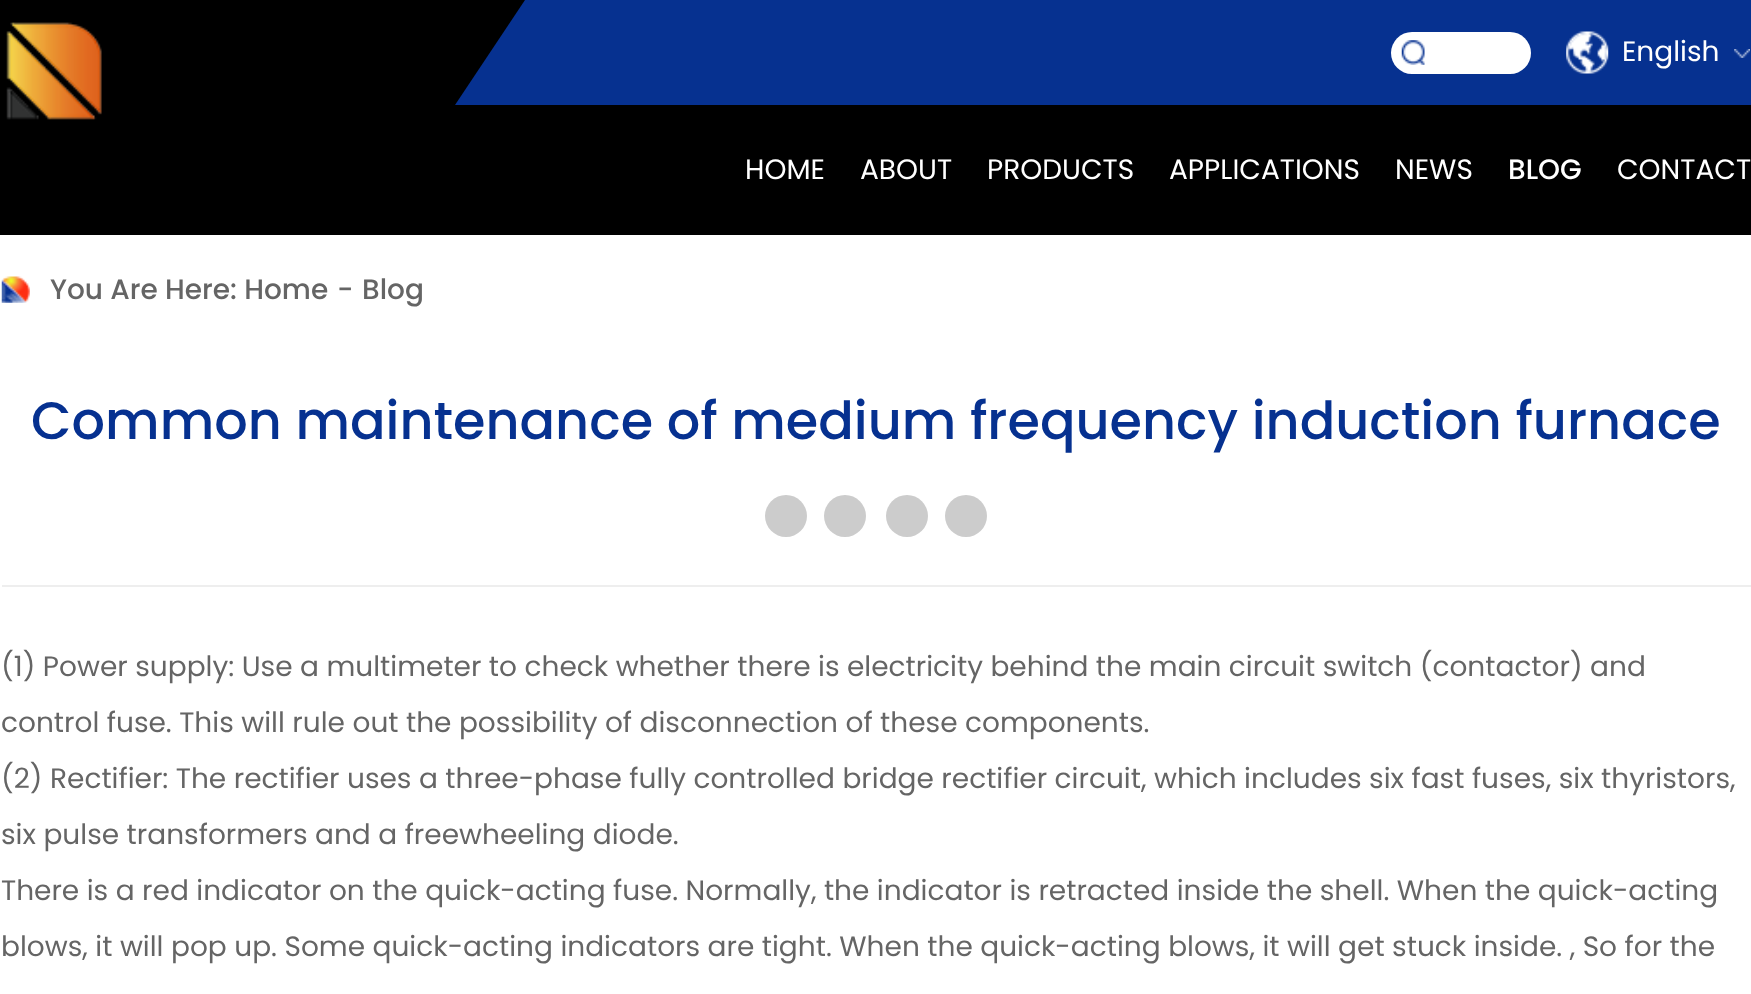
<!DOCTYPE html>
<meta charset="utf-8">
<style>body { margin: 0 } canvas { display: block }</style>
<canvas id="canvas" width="1751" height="994"></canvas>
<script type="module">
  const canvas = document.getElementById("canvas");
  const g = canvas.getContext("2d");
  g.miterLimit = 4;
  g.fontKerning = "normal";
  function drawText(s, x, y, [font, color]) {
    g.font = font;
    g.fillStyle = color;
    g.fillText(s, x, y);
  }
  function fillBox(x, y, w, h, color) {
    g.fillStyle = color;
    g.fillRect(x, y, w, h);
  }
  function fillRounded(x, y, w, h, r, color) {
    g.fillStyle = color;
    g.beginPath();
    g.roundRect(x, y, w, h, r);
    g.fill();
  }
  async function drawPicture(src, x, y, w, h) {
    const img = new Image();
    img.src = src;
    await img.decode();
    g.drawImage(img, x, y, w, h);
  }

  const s1 = ["28px Poppins", "#FFFFFF"];
  const s2 = ["500 28px Poppins", "#FFFFFF"];
  const s3 = ["500 28px Poppins", "#656565"];
  const s4 = ["500 52.5px Poppins", "#063190"];
  const s5 = ["28px Poppins", "#656565"];

  fillBox(0, 0, 1751, 994, "#FFFFFF");
  fillBox(525, 0, 1226, 105, "#063190");
  fillBox(0, 0, 525, 235, "#000000");
  g.fillStyle = "#063190";
  g.beginPath();
  g.moveTo(525, 105);
  g.lineTo(455, 105);
  g.lineTo(525, 0);
  g.closePath();
  g.fill();
  await drawPicture("pic1.png", 6, 22, 96, 98);
  fillRounded(1391, 32, 140, 42, 21, "#FFFFFF");
  await drawPicture("pic2.png", 1401, 40, 24, 25);
  await drawPicture("pic3.png", 1566, 31, 43, 43);
  drawText("English", 1622, 61, s1);
  await drawPicture("pic4.png", 1734, 49, 16, 9);
  fillBox(525, 105, 1226, 130, "#000000");
  drawText("HOME", 745, 179, s1);
  drawText("ABOUT", 860, 179, s1);
  drawText("PRODUCTS", 987, 179, s1);
  drawText("APPLICATIONS", 1169, 179, s1);
  drawText("NEWS", 1395, 179, s1);
  drawText("BLOG", 1508, 179, s2);
  drawText("CONTACT", 1617, 179, s1);
  await drawPicture("pic5.png", 1, 276, 29, 27);
  drawText("You Are Here: Home", 50, 299, s3);
  drawText("-", 337, 299, s3);
  drawText("Blog", 362, 299, s3);
  drawText("Common maintenance of medium frequency induction furnace", 31, 439, s4);
  fillBox(2, 585, 1749, 2, "#EEEEEE");
  g.fillStyle = "#CCCCCC";
  g.beginPath();
  g.arc(786, 516, 21, 0, Math.PI * 2);
  g.fill();
  g.beginPath();
  g.arc(845, 516, 21, 0, Math.PI * 2);
  g.fill();
  g.beginPath();
  g.arc(907, 516, 21, 0, Math.PI * 2);
  g.fill();
  g.beginPath();
  g.arc(966, 516, 21, 0, Math.PI * 2);
  g.fill();
  drawText("(1) Power supply: Use a multimeter to check whether there is electricity behind the main circuit switch (contactor) and", 1, 676, s5);
  drawText("control fuse. This will rule out the possibility of disconnection of these components.", 1, 732, s5);
  drawText("(2) Rectifier: The rectifier uses a three-phase fully controlled bridge rectifier circuit, which includes six fast fuses, six thyristors,", 1, 788, s5);
  drawText("six pulse transformers and a freewheeling diode.", 1, 844, s5);
  drawText("There is a red indicator on the quick-acting fuse. Normally, the indicator is retracted inside the shell. When the quick-acting", 1, 900, s5);
  drawText("blows, it will pop up. Some quick-acting indicators are tight. When the quick-acting blows, it will get stuck inside. , So for the", 1, 956, s5);
</script>
